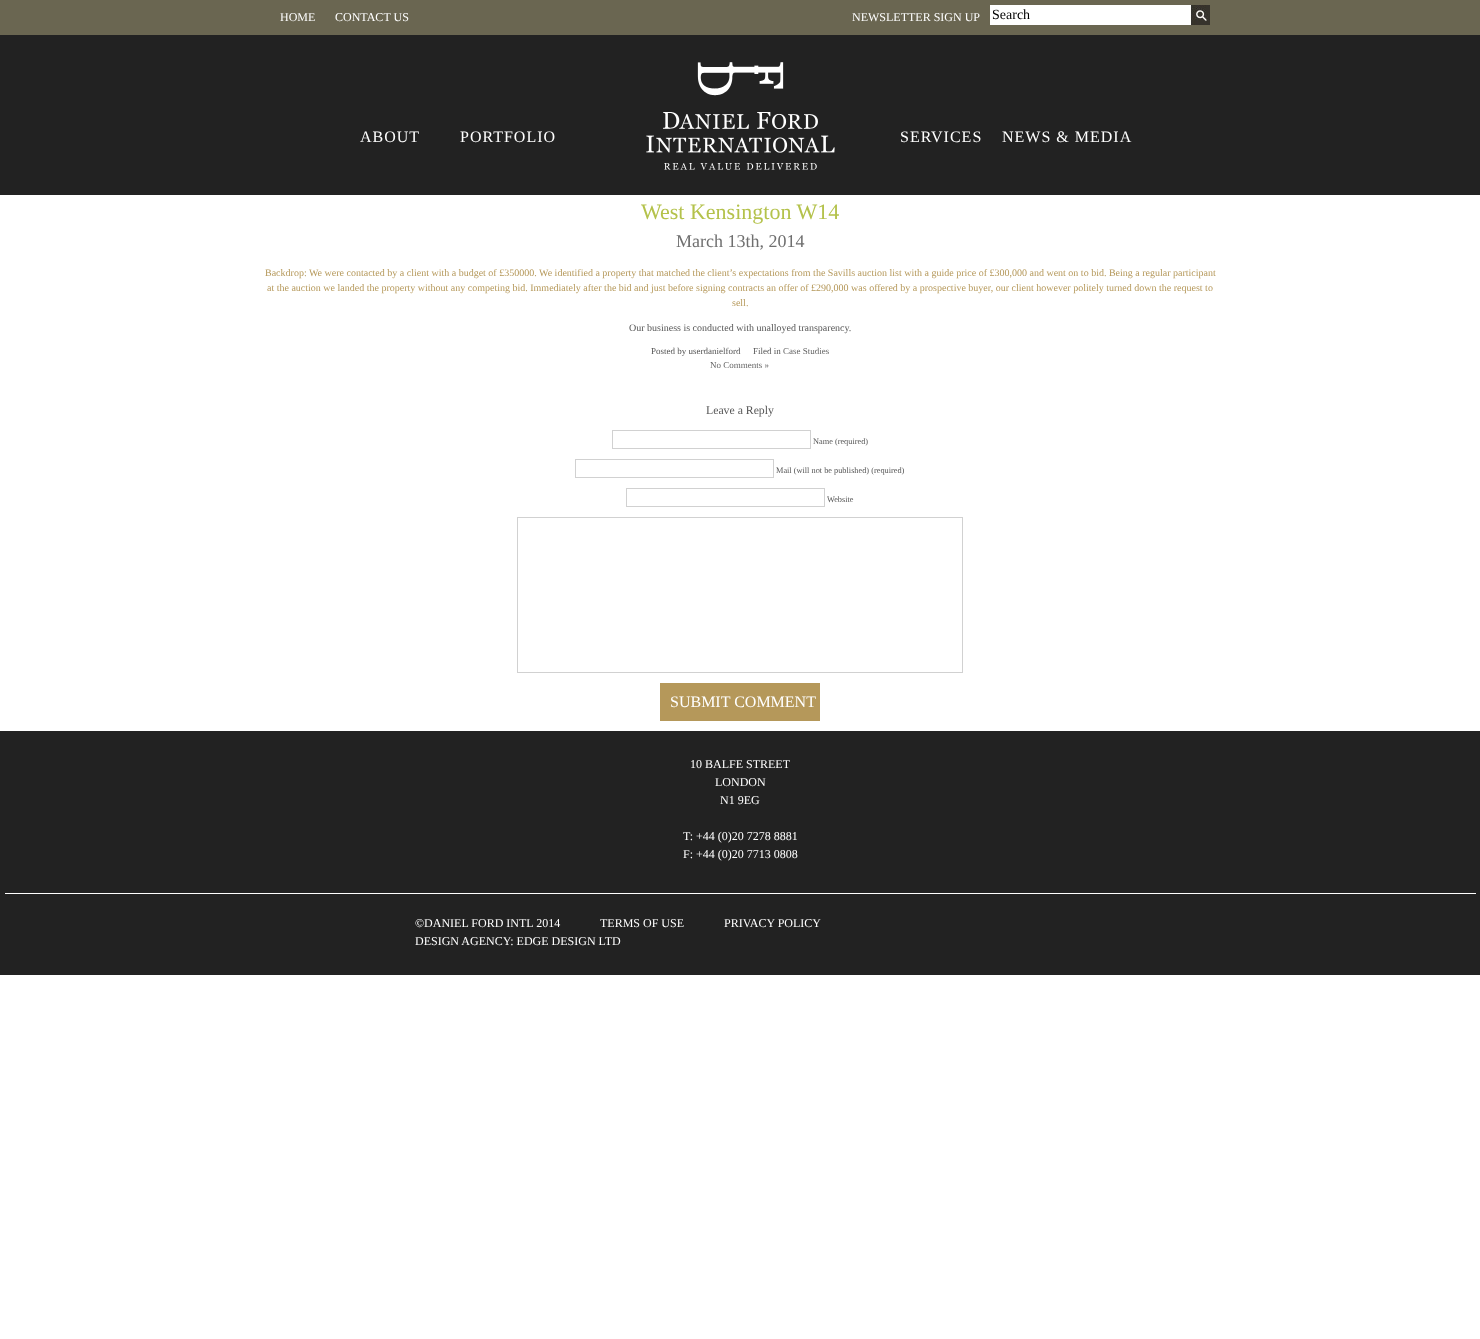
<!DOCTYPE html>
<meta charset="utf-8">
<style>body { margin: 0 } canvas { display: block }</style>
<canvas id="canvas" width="1480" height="1339"></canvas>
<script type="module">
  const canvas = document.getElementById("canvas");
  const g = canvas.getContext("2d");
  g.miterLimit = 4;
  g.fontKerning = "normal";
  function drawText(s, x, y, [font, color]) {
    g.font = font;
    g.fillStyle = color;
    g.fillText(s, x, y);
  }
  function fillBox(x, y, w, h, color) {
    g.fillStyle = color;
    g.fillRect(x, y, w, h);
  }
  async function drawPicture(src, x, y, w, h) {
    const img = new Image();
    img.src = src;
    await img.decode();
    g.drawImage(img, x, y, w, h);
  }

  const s1 = ["12px Liberation Serif", "#FFFFFF"];
  const s2 = ["14px Liberation Serif", "#000000"];
  const s3 = ["16px Liberation Serif", "#FFFFFF"];
  const s4 = ["22px Liberation Serif", "#B4C24B"];
  const s5 = ["18px Liberation Serif", "#6F6F6F"];
  const s6 = ["10px Liberation Serif", "#B5985A"];
  const s7 = ["10px Liberation Serif", "#555555"];
  const s8 = ["9px Liberation Serif", "#555555"];
  const s9 = ["9px Liberation Serif", "#666666"];
  const s10 = ["11.75px Liberation Serif", "#555555"];
  const s11 = ["8.3px Liberation Serif", "#555555"];

  fillBox(0, 0, 1480, 1339, "#FFFFFF");
  fillBox(0, 35, 1480, 160, "#222222");
  fillBox(0, 0, 1480, 35, "#6A6651");
  drawText("HOME", 280, 21, s1);
  drawText("CONTACT US", 335, 21, s1);
  drawText("NEWSLETTER SIGN UP", 852, 21, s1);
  await drawPicture("pic1.png", 990, 5, 220, 20);
  drawText("Search", 992, 19, s2);
  g.letterSpacing = "1px";
  drawText("ABOUT", 360, 142, s3);
  drawText("PORTFOLIO", 460, 142, s3);
  await drawPicture("pic2.png", 646, 62, 189, 108);
  drawText("SERVICES", 900, 142, s3);
  drawText("NEWS & MEDIA", 1002, 142, s3);
  g.letterSpacing = "0px";
  drawText("West Kensington W14", 641, 219, s4);
  drawText("March 13th, 2014", 676, 247, s5);
  drawText("Backdrop: We were contacted by a client with a budget of £350000. We identified a property that matched the client’s expectations from the Savills auction list with a guide price of £300,000 and went on to bid. Being a regular participant", 265, 276, s6);
  drawText("at the auction we landed the property without any competing bid. Immediately after the bid and just before signing contracts an offer of £290,000 was offered by a prospective buyer, our client however politely turned down the request to", 267, 291, s6);
  drawText("sell.", 732, 306, s6);
  drawText("Our business is conducted with unalloyed transparency.", 629, 331, s7);
  drawText("Posted by userdanielford", 651, 354, s8);
  drawText("Filed in", 753, 354, s8);
  drawText("Case Studies", 783, 354, s9);
  drawText("No Comments »", 710, 368, s9);
  drawText("Leave a Reply", 706, 414, s10);
  g.strokeStyle = "#D1D1D1";
  g.strokeRect(612.5, 430.5, 198, 18);
  drawText("Name (required)", 813, 444, s11);
  g.strokeRect(575.5, 459.5, 198, 18);
  drawText("Mail (will not be published) (required)", 776, 473, s11);
  g.strokeRect(626.5, 488.5, 198, 18);
  drawText("Website", 827, 502, s11);
  g.strokeRect(517.5, 517.5, 445, 155);
  fillBox(660, 683, 160, 38, "#B5985A");
  drawText("SUBMIT COMMENT", 670, 707, s3);
  fillBox(0, 731, 1480, 244, "#222222");
  fillBox(5, 893, 1471, 1, "#FFFFFF");
  drawText("10 BALFE STREET", 690, 768, s1);
  drawText("LONDON", 715, 786, s1);
  drawText("N1 9EG", 720, 804, s1);
  drawText("T: +44 (0)20 7278 8881", 683, 840, s1);
  drawText("F: +44 (0)20 7713 0808", 683, 858, s1);
  drawText("©DANIEL FORD INTL 2014", 415, 927, s1);
  drawText("TERMS OF USE", 600, 927, s1);
  drawText("PRIVACY POLICY", 724, 927, s1);
  drawText("DESIGN AGENCY: EDGE DESIGN LTD", 415, 945, s1);
</script>
